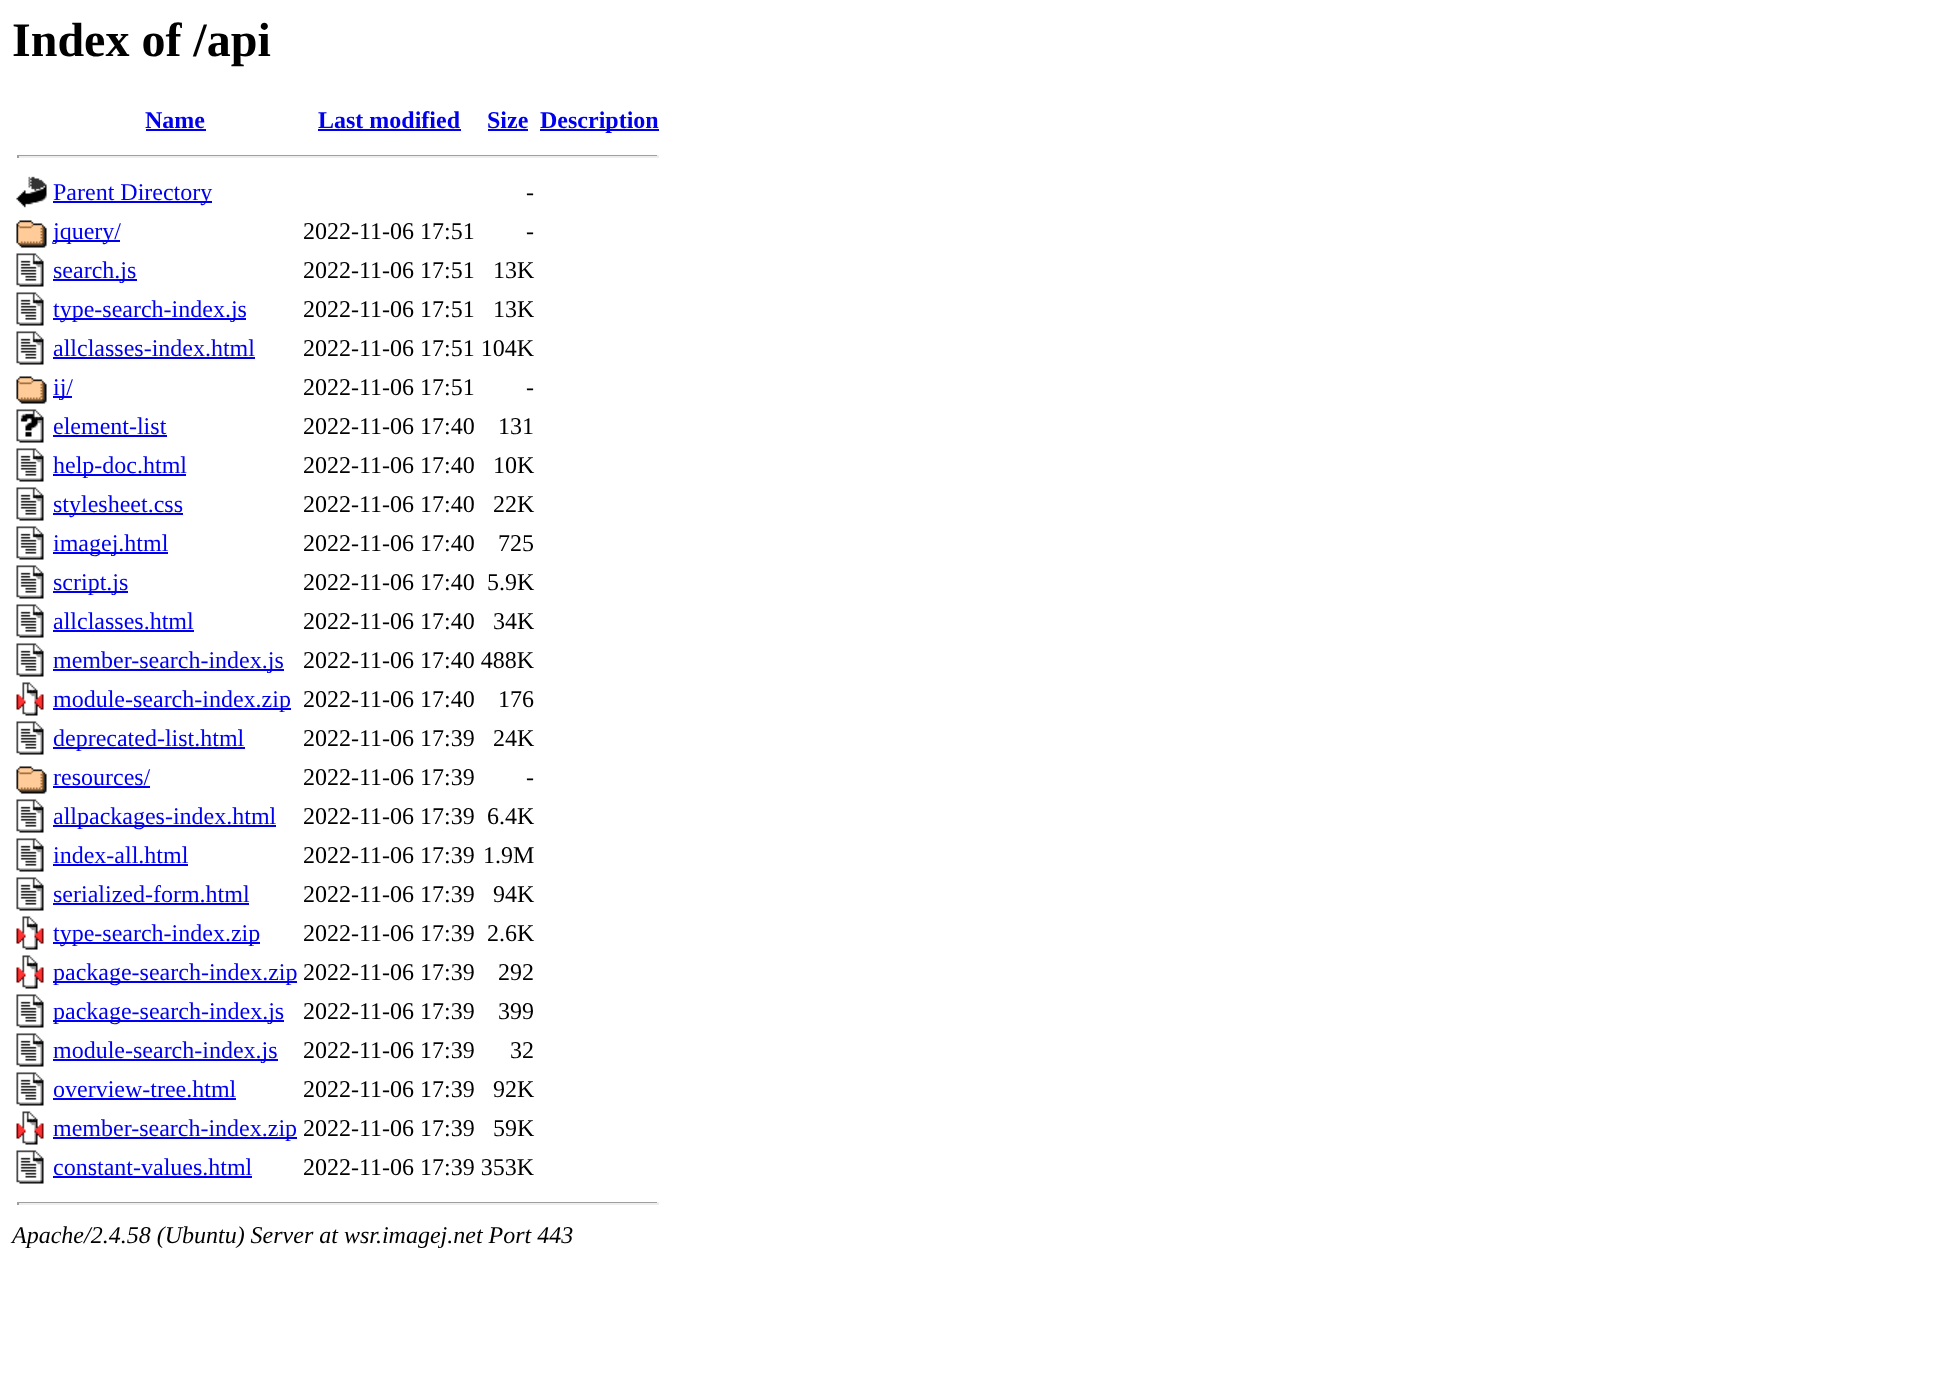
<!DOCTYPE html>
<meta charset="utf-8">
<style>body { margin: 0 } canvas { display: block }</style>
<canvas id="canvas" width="1945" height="1398"></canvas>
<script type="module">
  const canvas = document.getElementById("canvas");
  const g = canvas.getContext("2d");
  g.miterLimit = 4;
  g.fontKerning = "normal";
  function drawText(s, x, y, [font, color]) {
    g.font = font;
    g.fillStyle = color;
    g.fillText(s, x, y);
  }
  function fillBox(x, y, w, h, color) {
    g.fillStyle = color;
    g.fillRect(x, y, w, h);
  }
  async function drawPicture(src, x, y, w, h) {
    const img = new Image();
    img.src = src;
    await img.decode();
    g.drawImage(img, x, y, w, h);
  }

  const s1 = ["bold 48px Liberation Serif", "#000000"];
  const s2 = ["bold 24px Liberation Serif", "#0000EE"];
  const s3 = ["24px Liberation Serif", "#0000EE"];
  const s4 = ["24px Liberation Serif", "#000000"];
  const s5 = ["italic 24px Liberation Serif", "#000000"];

  fillBox(0, 0, 1945, 1398, "#FFFFFF");
  drawText("Index of /api", 12, 56, s1);
  drawText("Name", 145, 128, s2);
  fillBox(146, 129, 60, 2, "#0000EE");
  drawText("Last modified", 318, 128, s2);
  fillBox(318, 129, 143, 2, "#0000EE");
  drawText("Size", 487, 128, s2);
  fillBox(488, 129, 40, 2, "#0000EE");
  fillBox(540, 129, 119, 2, "#0000EE");
  drawText("Description", 540, 128, s2);
  fillBox(17, 155, 642, 1, "#9F9F9F");
  fillBox(657, 155, 2, 3, "#EEEEEE");
  fillBox(17, 156, 642, 2, "#EEEEEE");
  fillBox(17, 155, 2, 3, "#9F9F9F");
  await drawPicture("pic1.png", 16, 176, 31, 32);
  fillBox(53, 201, 159, 2, "#0000EE");
  drawText("Parent Directory", 53, 200, s3);
  drawText("-", 526, 200, s4);
  await drawPicture("pic2.png", 16, 220, 31, 28);
  fillBox(53, 240, 67, 2, "#0000EE");
  drawText("jquery/", 53, 239, s3);
  drawText("2022-11-06 17:51", 303, 239, s4);
  drawText("-", 526, 239, s4);
  await drawPicture("pic3.png", 16, 253, 28, 34);
  fillBox(53, 279, 84, 2, "#0000EE");
  drawText("search.js", 53, 278, s3);
  drawText("2022-11-06 17:51", 303, 278, s4);
  drawText("13K", 493, 278, s4);
  await drawPicture("pic3.png", 16, 292, 28, 34);
  fillBox(53, 318, 193, 2, "#0000EE");
  drawText("type-search-index.js", 53, 317, s3);
  drawText("2022-11-06 17:51", 303, 317, s4);
  drawText("13K", 493, 317, s4);
  await drawPicture("pic3.png", 16, 331, 28, 34);
  drawText("allclasses-index.html", 53, 356, s3);
  fillBox(53, 357, 202, 2, "#0000EE");
  drawText("2022-11-06 17:51 104K", 303, 356, s4);
  await drawPicture("pic2.png", 16, 376, 31, 28);
  fillBox(53, 396, 19, 2, "#0000EE");
  drawText("ij/", 53, 395, s3);
  drawText("2022-11-06 17:51", 303, 395, s4);
  drawText("-", 526, 395, s4);
  await drawPicture("pic4.png", 16, 409, 28, 34);
  drawText("element-list", 53, 434, s3);
  fillBox(53, 435, 114, 2, "#0000EE");
  drawText("2022-11-06 17:40", 303, 434, s4);
  drawText("131", 498, 434, s4);
  await drawPicture("pic3.png", 16, 448, 28, 34);
  fillBox(53, 474, 133, 2, "#0000EE");
  drawText("help-doc.html", 53, 473, s3);
  drawText("2022-11-06 17:40", 303, 473, s4);
  drawText("10K", 493, 473, s4);
  await drawPicture("pic3.png", 16, 487, 28, 34);
  fillBox(53, 513, 130, 2, "#0000EE");
  drawText("stylesheet.css", 53, 512, s3);
  drawText("2022-11-06 17:40", 303, 512, s4);
  drawText("22K", 493, 512, s4);
  await drawPicture("pic3.png", 16, 526, 28, 34);
  fillBox(53, 552, 115, 2, "#0000EE");
  drawText("imagej.html", 53, 551, s3);
  drawText("2022-11-06 17:40", 303, 551, s4);
  drawText("725", 498, 551, s4);
  await drawPicture("pic3.png", 16, 565, 28, 34);
  fillBox(53, 591, 75, 2, "#0000EE");
  drawText("script.js", 53, 590, s3);
  drawText("2022-11-06 17:40", 303, 590, s4);
  drawText("5.9K", 487, 590, s4);
  await drawPicture("pic3.png", 16, 604, 28, 34);
  drawText("allclasses.html", 53, 629, s3);
  fillBox(53, 630, 141, 2, "#0000EE");
  drawText("2022-11-06 17:40", 303, 629, s4);
  drawText("34K", 493, 629, s4);
  await drawPicture("pic3.png", 16, 643, 28, 34);
  fillBox(53, 669, 231, 2, "#0000EE");
  drawText("member-search-index.js", 53, 668, s3);
  drawText("2022-11-06 17:40 488K", 303, 668, s4);
  await drawPicture("pic5.png", 16, 682, 28, 34);
  fillBox(53, 708, 238, 2, "#0000EE");
  drawText("module-search-index.zip", 53, 707, s3);
  drawText("2022-11-06 17:40", 303, 707, s4);
  drawText("176", 498, 707, s4);
  await drawPicture("pic3.png", 16, 721, 28, 34);
  fillBox(53, 747, 192, 2, "#0000EE");
  drawText("deprecated-list.html", 53, 746, s3);
  drawText("2022-11-06 17:39", 303, 746, s4);
  drawText("24K", 493, 746, s4);
  await drawPicture("pic2.png", 16, 766, 31, 28);
  drawText("resources/", 53, 785, s3);
  fillBox(53, 786, 97, 2, "#0000EE");
  drawText("2022-11-06 17:39", 303, 785, s4);
  drawText("-", 526, 785, s4);
  await drawPicture("pic3.png", 16, 799, 28, 34);
  fillBox(53, 825, 223, 2, "#0000EE");
  drawText("allpackages-index.html", 53, 824, s3);
  drawText("2022-11-06 17:39", 303, 824, s4);
  drawText("6.4K", 487, 824, s4);
  await drawPicture("pic3.png", 16, 838, 28, 34);
  drawText("index-all.html", 53, 863, s3);
  fillBox(53, 864, 135, 2, "#0000EE");
  drawText("2022-11-06 17:39", 303, 863, s4);
  drawText("1.9M", 483, 863, s4);
  await drawPicture("pic3.png", 16, 877, 28, 34);
  drawText("serialized-form.html", 53, 902, s3);
  fillBox(53, 903, 196, 2, "#0000EE");
  drawText("2022-11-06 17:39", 303, 902, s4);
  drawText("94K", 493, 902, s4);
  await drawPicture("pic5.png", 16, 916, 28, 34);
  fillBox(53, 942, 207, 2, "#0000EE");
  drawText("type-search-index.zip", 53, 941, s3);
  drawText("2022-11-06 17:39", 303, 941, s4);
  drawText("2.6K", 487, 941, s4);
  await drawPicture("pic5.png", 16, 955, 28, 34);
  fillBox(53, 981, 244, 2, "#0000EE");
  drawText("package-search-index.zip", 53, 980, s3);
  drawText("2022-11-06 17:39", 303, 980, s4);
  drawText("292", 498, 980, s4);
  await drawPicture("pic3.png", 16, 994, 28, 34);
  fillBox(53, 1020, 231, 2, "#0000EE");
  drawText("package-search-index.js", 53, 1019, s3);
  drawText("2022-11-06 17:39", 303, 1019, s4);
  drawText("399", 498, 1019, s4);
  await drawPicture("pic3.png", 16, 1033, 28, 34);
  fillBox(53, 1059, 225, 2, "#0000EE");
  drawText("module-search-index.js", 53, 1058, s3);
  drawText("2022-11-06 17:39", 303, 1058, s4);
  drawText("32", 510, 1058, s4);
  await drawPicture("pic3.png", 16, 1072, 28, 34);
  drawText("overview-tree.html", 53, 1097, s3);
  fillBox(53, 1098, 183, 2, "#0000EE");
  drawText("2022-11-06 17:39", 303, 1097, s4);
  drawText("92K", 493, 1097, s4);
  await drawPicture("pic5.png", 16, 1111, 28, 34);
  fillBox(53, 1137, 244, 2, "#0000EE");
  drawText("member-search-index.zip", 53, 1136, s3);
  drawText("2022-11-06 17:39", 303, 1136, s4);
  drawText("59K", 493, 1136, s4);
  await drawPicture("pic3.png", 16, 1150, 28, 34);
  drawText("constant-values.html", 53, 1175, s3);
  fillBox(53, 1176, 199, 2, "#0000EE");
  drawText("2022-11-06 17:39 353K", 303, 1175, s4);
  fillBox(17, 1202, 642, 1, "#9F9F9F");
  fillBox(657, 1202, 2, 3, "#EEEEEE");
  fillBox(17, 1203, 642, 2, "#EEEEEE");
  fillBox(17, 1202, 2, 3, "#9F9F9F");
  drawText("Apache/2.4.58 (Ubuntu) Server at wsr.imagej.net Port 443", 12, 1243, s5);
</script>
